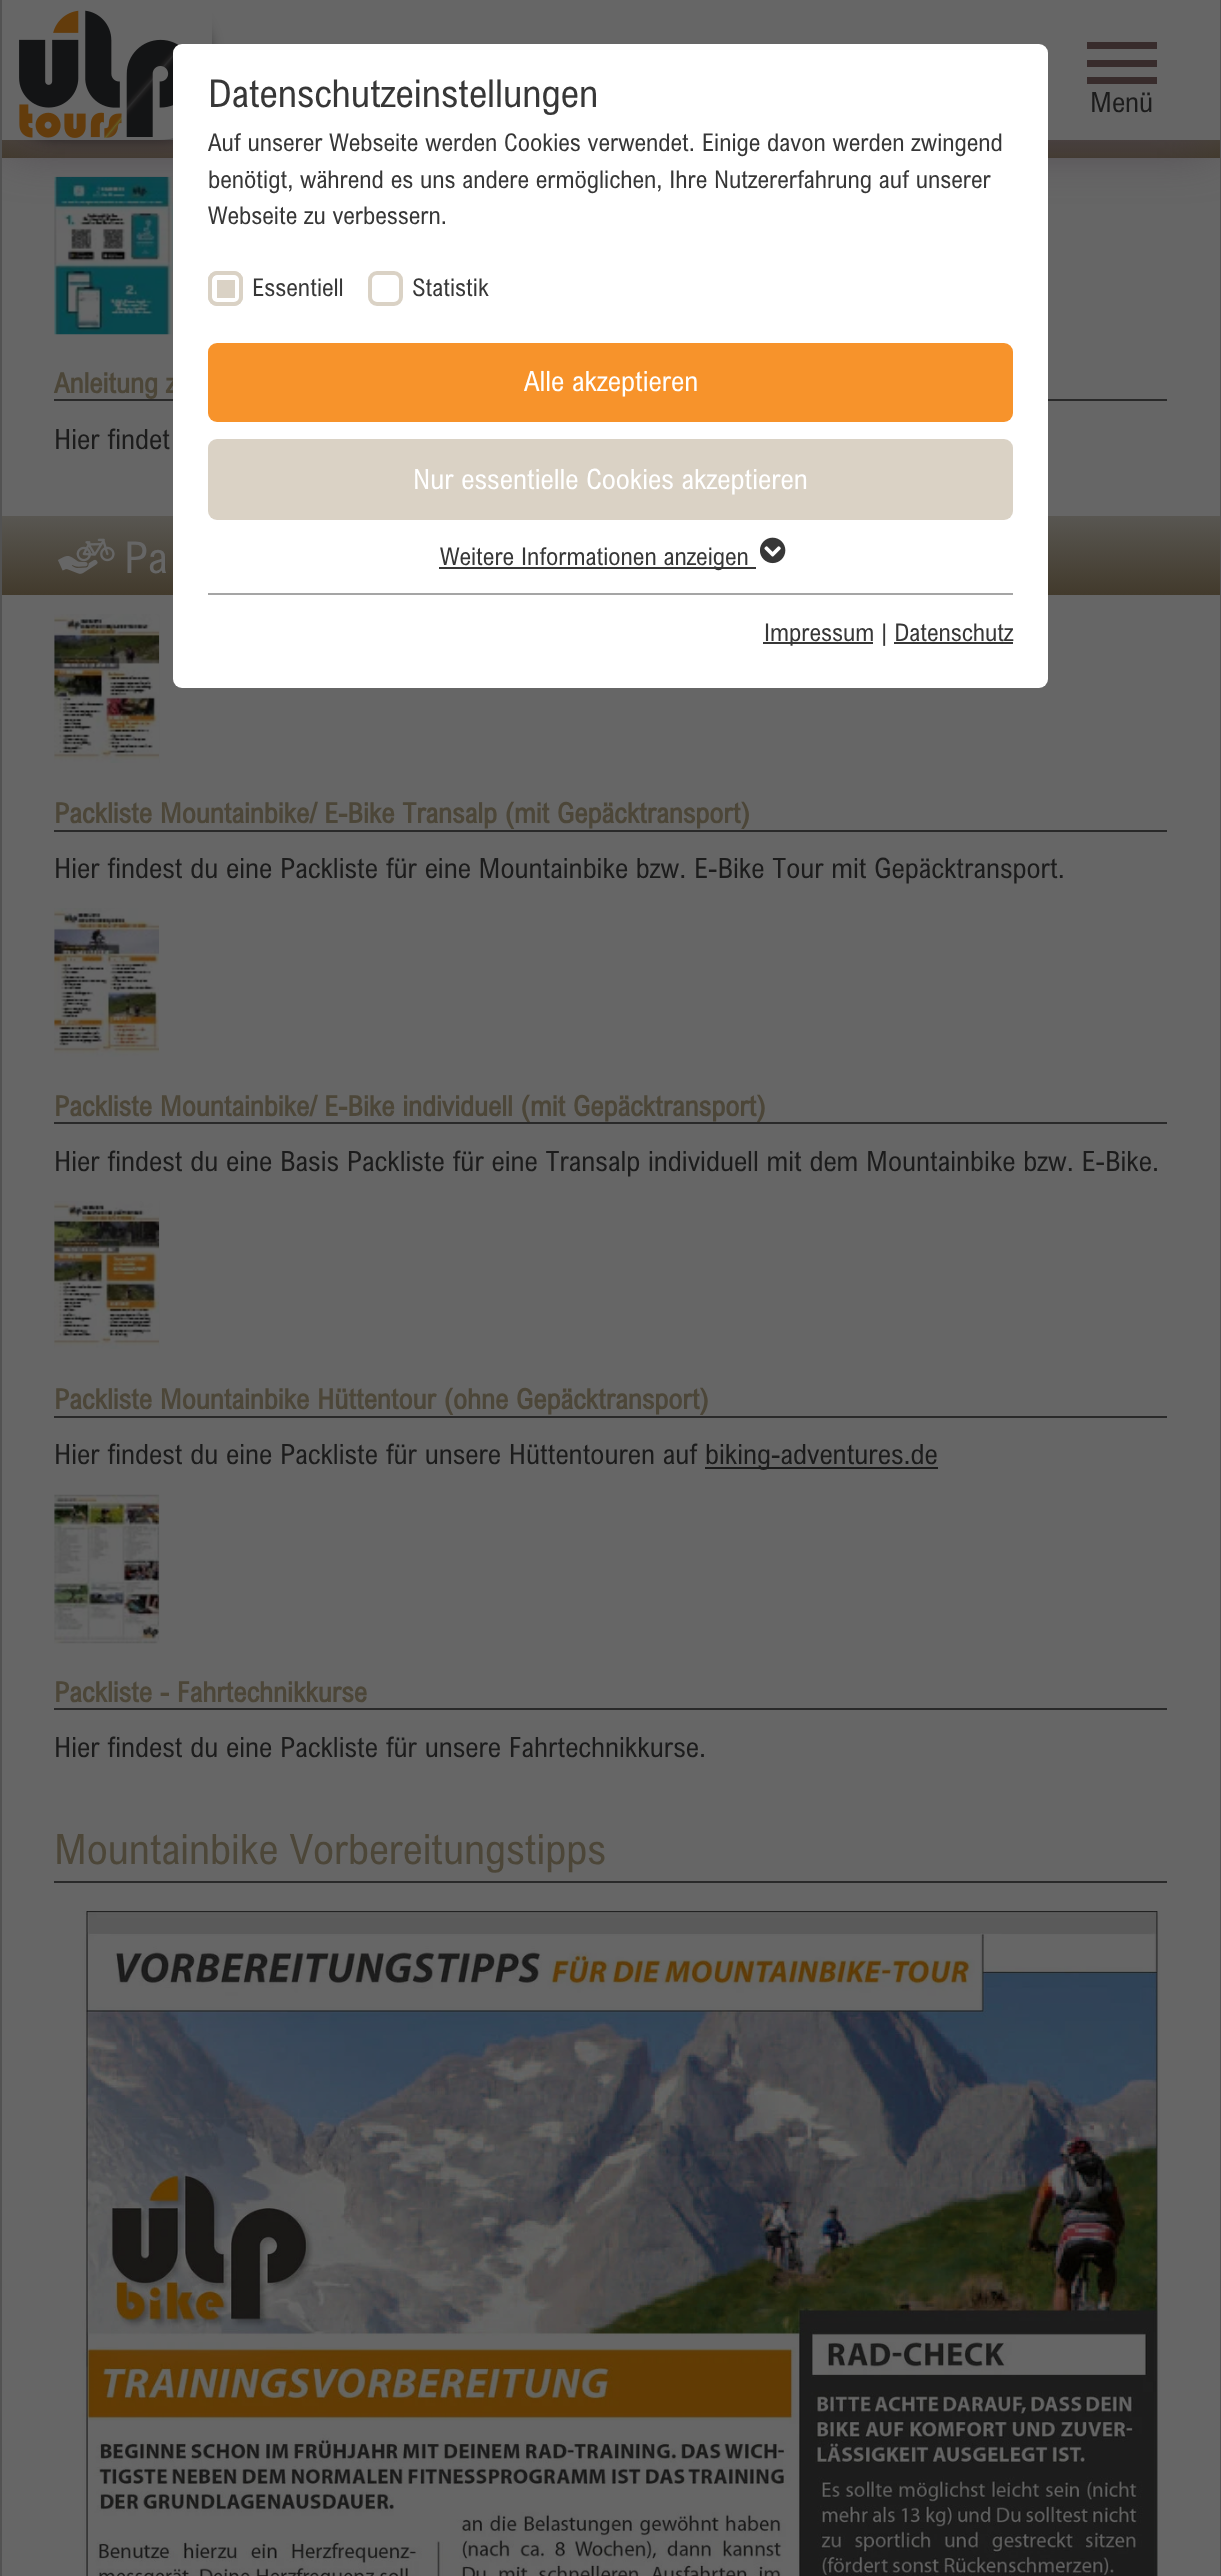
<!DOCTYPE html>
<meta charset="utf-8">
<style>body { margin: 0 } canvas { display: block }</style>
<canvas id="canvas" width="1221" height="2576"></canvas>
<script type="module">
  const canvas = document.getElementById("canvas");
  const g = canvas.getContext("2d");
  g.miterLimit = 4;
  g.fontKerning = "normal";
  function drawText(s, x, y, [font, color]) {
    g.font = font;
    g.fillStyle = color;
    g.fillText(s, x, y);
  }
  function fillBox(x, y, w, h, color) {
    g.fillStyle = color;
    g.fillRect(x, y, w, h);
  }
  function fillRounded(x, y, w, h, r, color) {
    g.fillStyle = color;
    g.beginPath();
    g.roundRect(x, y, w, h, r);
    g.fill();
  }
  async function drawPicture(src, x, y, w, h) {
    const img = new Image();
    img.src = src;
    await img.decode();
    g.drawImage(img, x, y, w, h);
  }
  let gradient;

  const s1 = ["bold 28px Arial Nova", "#4C4638"];
  const s2 = ["38.5px Arial Nova", "#373737"];
  const s3 = ["24.5px Arial Nova", "#373737"];
  const s4 = ["28px Arial Nova", "#FFFFFF"];
  const s5 = ["28px Arial Nova", "#1C1C1C"];
  const s6 = ["44px Arial Nova", "#666666"];
  const s7 = ["42px Arial Nova", "#4C4638"];

  fillBox(0, 0, 1221, 2576, "#666666");
  fillBox(1220, 0, 1, 2576, "#525252");
  fillBox(0, 0, 2, 2576, "#525252");
  gradient = g.createLinearGradient(611, 79, 611, 158);
  gradient.addColorStop(0, "#585651");
  gradient.addColorStop(0.01, "#585651");
  gradient.addColorStop(1, "#423A2C");
  g.fillStyle = gradient;
  g.fillRect(2, 140, 1218, 18);
  await drawPicture("pic3.png", 54, 176, 119, 159);
  g.save();
  g.beginPath();
  g.rect(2, 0, 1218, 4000);
  g.clip();
  g.fillStyle = "#483F48";
  g.filter = "blur(26px)";
  g.beginPath();
  g.rect(9, 16, 1204, 126);
  g.fill();
  g.filter = "none";
  g.restore();
  fillBox(2, 0, 1218, 140, "#666666");
  g.save();
  g.beginPath();
  g.rect(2, 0, 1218, 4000);
  g.clip();
  g.beginPath();
  g.moveTo(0, 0);
  g.lineTo(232, 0);
  g.lineTo(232, 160);
  g.lineTo(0, 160);
  g.closePath();
  g.moveTo(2, 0);
  g.lineTo(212, 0);
  g.lineTo(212, 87);
  g.bezierCurveTo(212, 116.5, 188.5, 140, 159, 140);
  g.lineTo(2, 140);
  g.closePath();
  g.clip("evenodd");
  g.fillStyle = "rgba(0, 0, 0, 0.57)";
  g.filter = "blur(7px)";
  g.beginPath();
  g.roundRect(7, 5, 203, 133, 49);
  g.fill();
  g.filter = "none";
  g.restore();
  await drawPicture("pic2.png", 19, 10, 160, 128);
  fillBox(54, 399, 1113, 2, "#292929");
  drawText("Anleitung z", 54, 393, s1);
  gradient = g.createLinearGradient(611, 516, 611, 595);
  gradient.addColorStop(0, "#585651");
  gradient.addColorStop(0.01, "#585651");
  gradient.addColorStop(1, "#423A2C");
  g.fillStyle = gradient;
  g.fillRect(2, 516, 1218, 79);
  fillRounded(173, 44, 875, 644, 9, "#FFFFFF");
  drawText("Datenschutzeinstellungen", 208, 107, s2);
  drawText("Auf unserer Webseite werden Cookies verwendet. Einige davon werden zwingend", 208, 151, s3);
  drawText("benötigt, während es uns andere ermöglichen, Ihre Nutzererfahrung auf unserer", 208, 188, s3);
  drawText("Webseite zu verbessern.", 208, 224, s3);
  fillRounded(208, 271, 35, 35, 9, "#DAD2C5");
  g.beginPath();
  g.roundRect(214.5, 277.5, 23, 23, 2.5);
  g.strokeStyle = "#FFFFFF";
  g.lineWidth = 5;
  g.stroke();
  g.beginPath();
  g.roundRect(210, 273, 31, 31, 7);
  g.strokeStyle = "#DAD2C5";
  g.lineWidth = 4;
  g.stroke();
  drawText("Essentiell", 252, 296, s3);
  g.beginPath();
  g.roundRect(370, 273, 31, 31, 7);
  g.stroke();
  drawText("Statistik", 412, 296, s3);
  fillRounded(208, 343, 805, 79, 9, "#F7932B");
  drawText("Alle akzeptieren", 524, 391, s4);
  fillRounded(208, 439, 805, 81, 9, "#DAD2C5");
  drawText("Nur essentielle Cookies akzeptieren", 413, 489, s4);
  fillBox(439, 567, 317, 2, "#373737");
  drawText("Weitere Informationen anzeigen", 440, 565, s3);
  await drawPicture("pic1.png", 760, 537, 26, 27);
  fillBox(208, 593, 805, 2, "#A5A5A5");
  fillBox(763, 642, 110, 2, "#373737");
  drawText("Impressum | Datenschutz", 764, 641, s3);
  fillBox(894, 642, 119, 2, "#373737");
  fillBox(1087, 42, 70, 7, "#382C2C");
  fillBox(1087, 60, 70, 7, "#382C2C");
  fillBox(1087, 77, 70, 7, "#382C2C");
  drawText("Menü", 1090, 112, s5);
  drawText("Hier findet", 54, 449, s5);
  await drawPicture("pic4.png", 58, 538, 57, 36);
  drawText("Pa", 124, 573, s6);
  await drawPicture("pic5.png", 54, 614, 106, 149);
  fillBox(54, 830, 1113, 2, "#292929");
  drawText("Packliste Mountainbike/ E-Bike Transalp (mit Gepäcktransport)", 54, 823, s1);
  drawText("Hier findest du eine Packliste für eine Mountainbike bzw. E-Bike Tour mit Gepäcktransport.", 54, 878, s5);
  await drawPicture("pic6.png", 54, 908, 105, 149);
  fillBox(54, 1122, 1113, 2, "#292929");
  drawText("Packliste Mountainbike/ E-Bike individuell (mit Gepäcktransport)", 54, 1116, s1);
  drawText("Hier findest du eine Basis Packliste für eine Transalp individuell mit dem Mountainbike bzw. E-Bike.", 54, 1171, s5);
  await drawPicture("pic7.png", 54, 1201, 106, 148);
  fillBox(54, 1416, 1113, 2, "#292929");
  drawText("Packliste Mountainbike Hüttentour (ohne Gepäcktransport)", 54, 1409, s1);
  drawText("Hier findest du eine Packliste für unsere Hüttentouren auf", 54, 1464, s5);
  fillBox(705, 1467, 233, 2, "#1C1C1C");
  drawText("biking-adventures.de", 705, 1464, s5);
  await drawPicture("pic8.png", 54, 1494, 106, 150);
  fillBox(54, 1708, 1113, 2, "#292929");
  drawText("Packliste - Fahrtechnikkurse", 54, 1702, s1);
  drawText("Hier findest du eine Packliste für unsere Fahrtechnikkurse.", 54, 1757, s5);
  fillBox(54, 1881, 1113, 2, "#292929");
  drawText("Mountainbike Vorbereitungstipps", 54, 1864, s7);
  await drawPicture("pic9.png", 82, 1911, 1078, 665);
</script>
